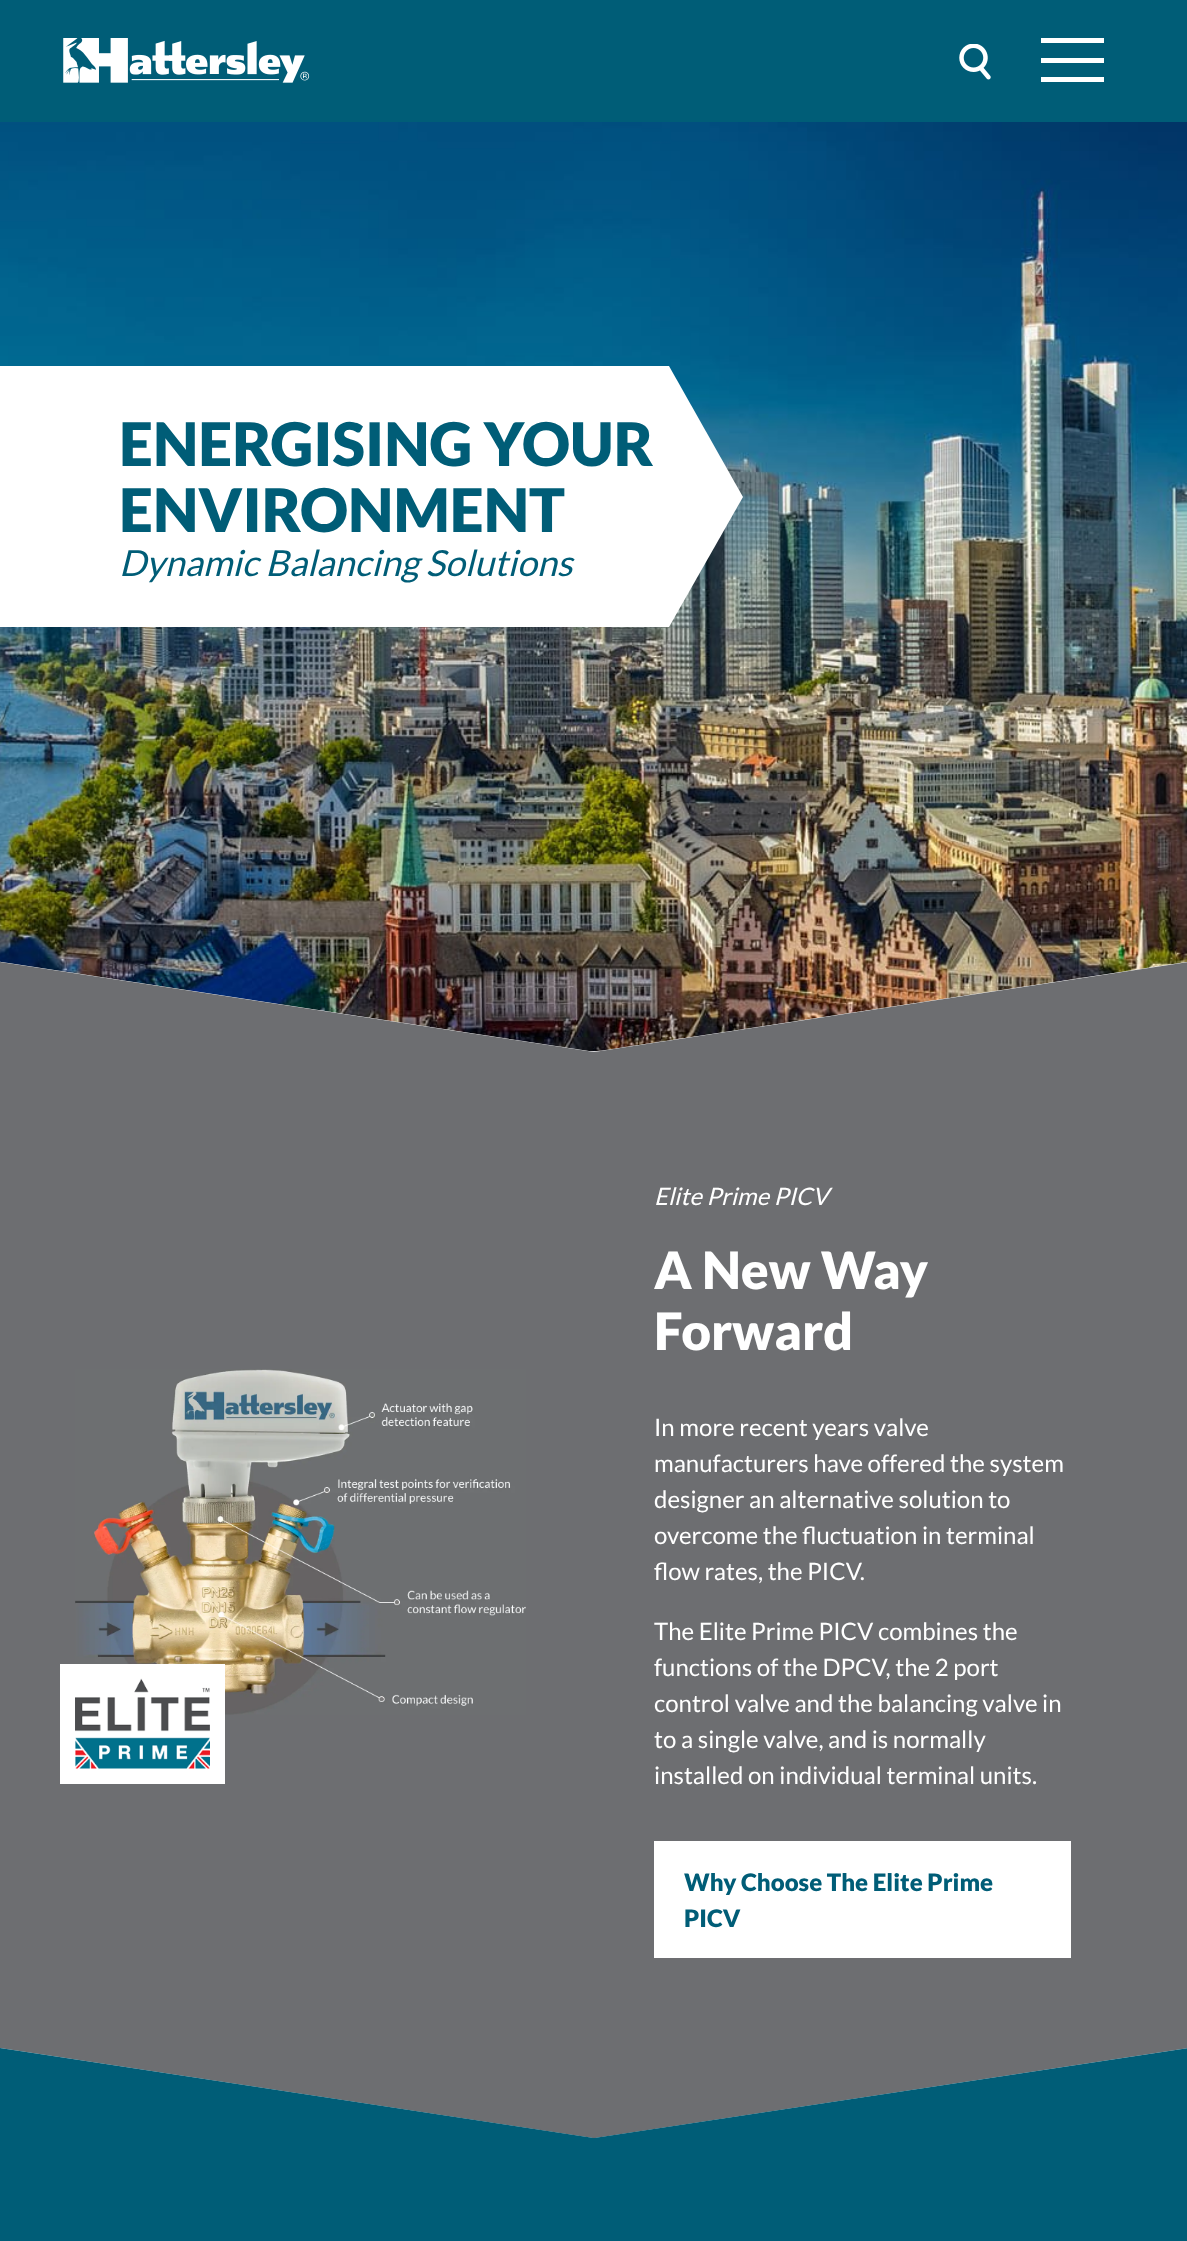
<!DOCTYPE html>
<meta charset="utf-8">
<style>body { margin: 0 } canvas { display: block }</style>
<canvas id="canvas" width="1187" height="2241"></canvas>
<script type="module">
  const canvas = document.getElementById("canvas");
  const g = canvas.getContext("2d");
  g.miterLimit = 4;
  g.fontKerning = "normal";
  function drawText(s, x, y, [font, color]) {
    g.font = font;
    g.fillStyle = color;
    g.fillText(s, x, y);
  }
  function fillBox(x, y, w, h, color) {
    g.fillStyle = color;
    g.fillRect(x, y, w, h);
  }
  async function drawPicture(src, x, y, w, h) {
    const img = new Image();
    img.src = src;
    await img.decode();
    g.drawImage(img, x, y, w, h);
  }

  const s1 = ["900 60px Lato", "#005D77"];
  const s2 = ["italic 36px Lato", "#005D77"];
  const s3 = ["italic 24px Lato", "#FFFFFF"];
  const s4 = ["900 51.5px Lato", "#FFFFFF"];
  const s5 = ["24px Lato", "#FFFFFF"];
  const s6 = ["900 24px Lato", "#005D77"];

  fillBox(0, 0, 1187, 2241, "#FFFFFF");
  fillBox(0, 0, 1187, 122, "#005D77");
  await drawPicture("pic1.png", 63, 38, 247, 45);
  await drawPicture("pic2.png", 959, 44, 32, 36);
  fillBox(1041, 38, 63, 5, "#FFFFFF");
  fillBox(1041, 58, 63, 5, "#FFFFFF");
  fillBox(1041, 77, 63, 5, "#FFFFFF");
  await drawPicture("pic3.png", 0, 122, 1187, 930);
  g.beginPath();
  g.moveTo(0, 366);
  g.lineTo(0, 627);
  g.lineTo(669, 627);
  g.lineTo(743, 497);
  g.lineTo(669, 366);
  g.closePath();
  g.fill();
  drawText("ENERGISING YOUR", 119, 466, s1);
  drawText("ENVIRONMENT", 119, 532, s1);
  drawText("Dynamic Balancing Solutions", 119, 576, s2);
  g.fillStyle = "#6D6E71";
  g.beginPath();
  g.moveTo(0, 962);
  g.lineTo(594, 1052);
  g.lineTo(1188, 962);
  g.lineTo(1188, 2048);
  g.lineTo(595, 2138);
  g.lineTo(593, 2138);
  g.lineTo(0, 2048);
  g.closePath();
  g.fill();
  await drawPicture("pic4.png", 75, 1369, 451, 346);
  fillBox(60, 1664, 165, 120, "#FFFFFF");
  await drawPicture("pic5.png", 75, 1678, 135, 91);
  drawText("Elite Prime PICV", 654, 1205, s3);
  drawText("A New Way", 654, 1289, s4);
  drawText("Forward", 654, 1350, s4);
  drawText("In more recent years valve", 654, 1436, s5);
  drawText("manufacturers have offered the system", 654, 1472, s5);
  drawText("designer an alternative solution to", 654, 1508, s5);
  drawText("overcome the fluctuation in terminal", 654, 1544, s5);
  drawText("flow rates, the PICV.", 654, 1580, s5);
  drawText("The Elite Prime PICV combines the", 654, 1640, s5);
  drawText("functions of the DPCV, the 2 port", 654, 1676, s5);
  drawText("control valve and the balancing valve in", 654, 1712, s5);
  drawText("to a single valve, and is normally", 654, 1748, s5);
  drawText("installed on individual terminal units.", 654, 1784, s5);
  fillBox(654, 1841, 417, 117, "#FFFFFF");
  drawText("Why Choose The Elite Prime", 684, 1891, s6);
  drawText("PICV", 684, 1927, s6);
  g.beginPath();
  g.moveTo(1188, 2048);
  g.lineTo(594, 2138);
  g.lineTo(0, 2048);
  g.lineTo(0, 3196);
  g.lineTo(594, 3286);
  g.lineTo(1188, 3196);
  g.closePath();
  g.fill();
</script>
